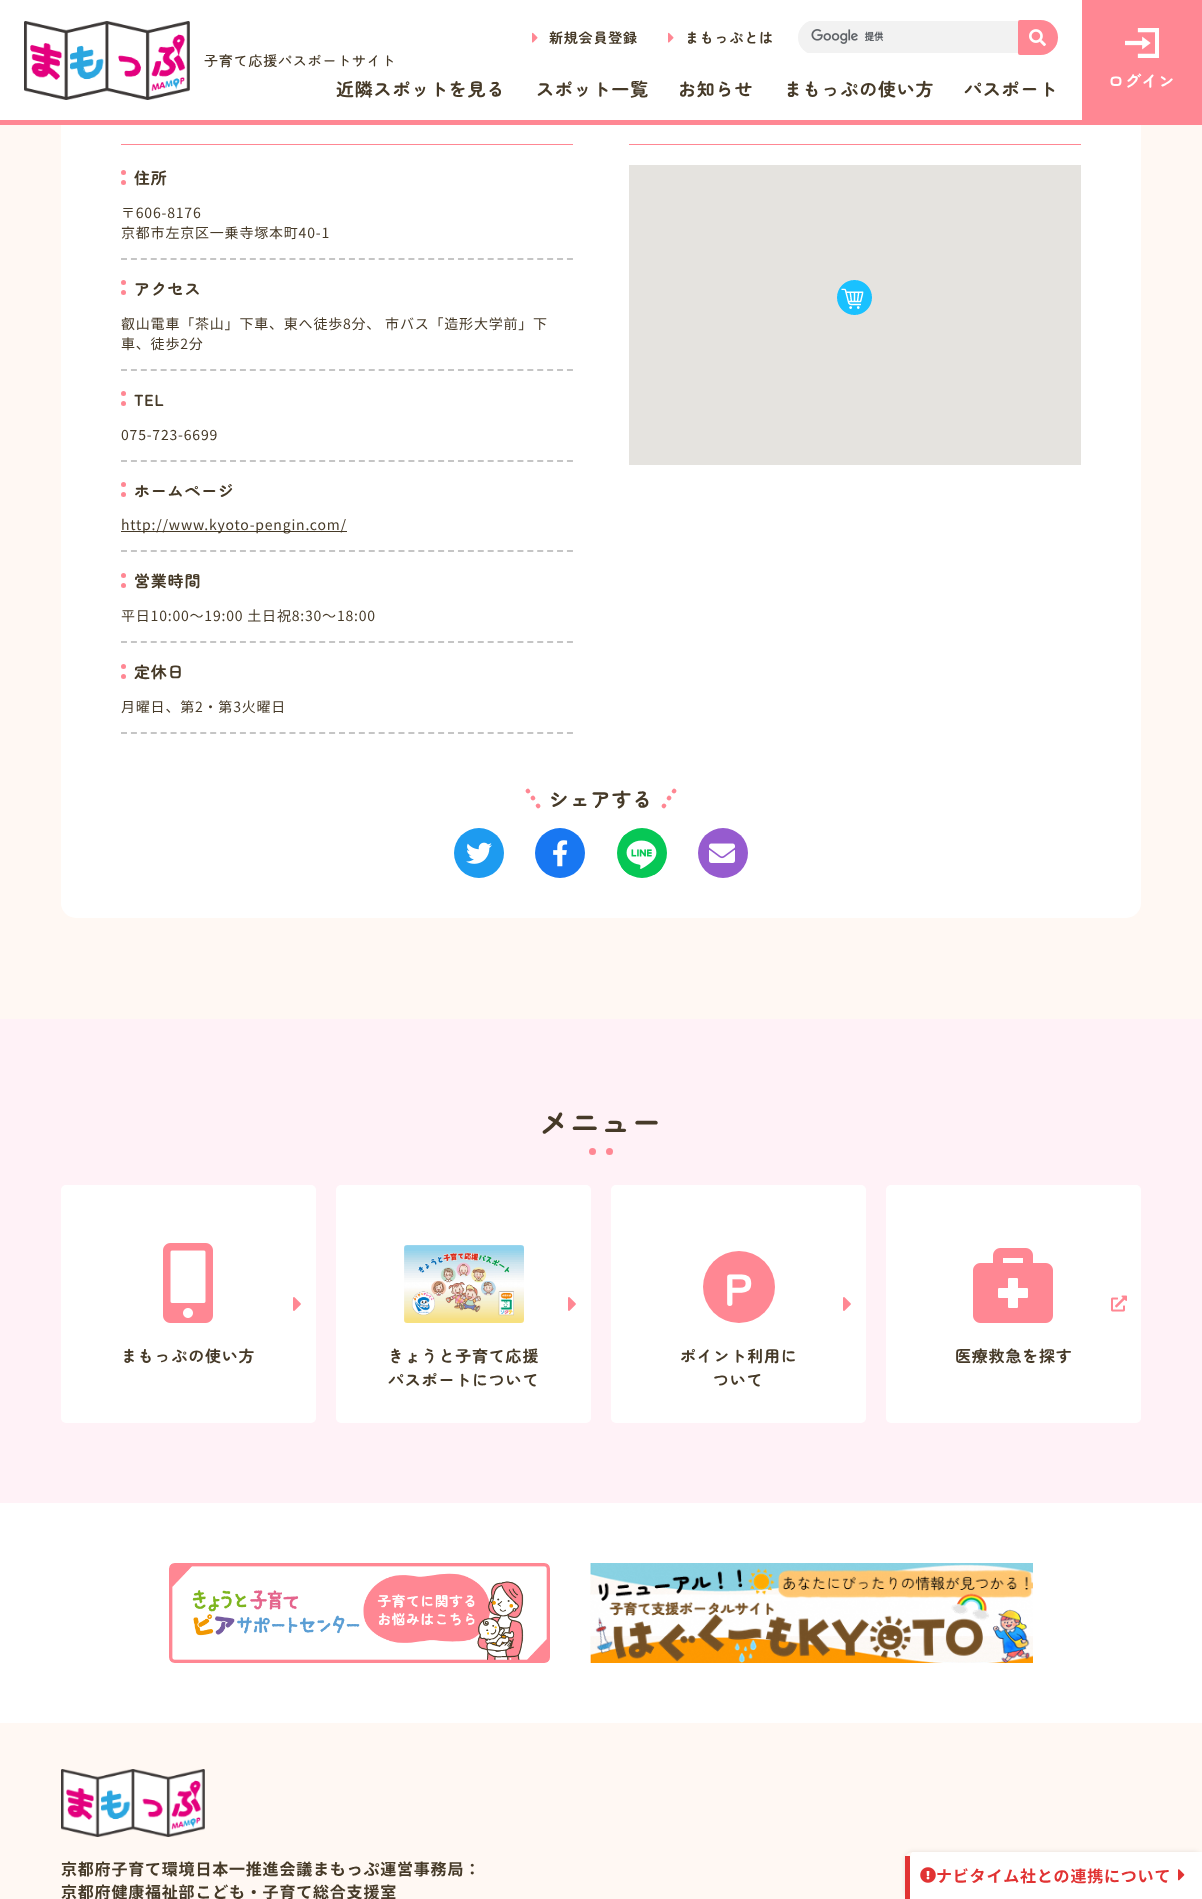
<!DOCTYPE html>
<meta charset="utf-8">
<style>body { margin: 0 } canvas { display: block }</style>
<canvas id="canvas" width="1202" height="1899"></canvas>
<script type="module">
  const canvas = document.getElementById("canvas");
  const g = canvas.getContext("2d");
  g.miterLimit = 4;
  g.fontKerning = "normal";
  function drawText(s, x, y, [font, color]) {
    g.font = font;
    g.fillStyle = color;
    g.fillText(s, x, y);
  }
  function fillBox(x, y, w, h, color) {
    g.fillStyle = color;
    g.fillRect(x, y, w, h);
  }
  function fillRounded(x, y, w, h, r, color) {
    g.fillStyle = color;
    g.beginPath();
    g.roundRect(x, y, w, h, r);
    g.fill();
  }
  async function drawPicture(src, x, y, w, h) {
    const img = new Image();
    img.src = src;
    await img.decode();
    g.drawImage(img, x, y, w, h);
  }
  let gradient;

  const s1 = ["bold 14px Zen Maru Gothic", "#463A28"];
  const s2 = ["500 14px Zen Maru Gothic", "#463A28"];
  const s3 = ["bold 18px Zen Maru Gothic", "#463A28"];
  const s4 = ["bold 16px Zen Maru Gothic", "#FFFFFF"];
  const s5 = ["bold 16px Zen Maru Gothic", "#463A28"];
  const s6 = ["14px Noto Sans JP", "#463A28"];
  const s7 = ["bold 20px Zen Maru Gothic", "#463A28"];
  const s8 = ["bold 30px Zen Maru Gothic", "#463A28"];
  const s9 = ["bold 45px Zen Maru Gothic", "#FFFFFF"];
  const s10 = ["bold 16px Noto Sans JP", "#463A28"];
  const s11 = ["bold 16px Noto Sans JP", "#E13333"];

  fillBox(0, 0, 1202, 1899, "#FFF8F3");
  fillBox(0, 0, 61, 120, "#FFFFFF");
  fillRounded(61, -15, 1080, 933, 15, "#FFFFFF");
  fillBox(0, 120, 1202, 5, "#FF8793");
  await drawPicture("pic1.png", 532, 32, 6, 11);
  g.letterSpacing = "0.8px";
  drawText("新規会員登録", 549, 43, s1);
  await drawPicture("pic1.png", 668, 32, 6, 11);
  drawText("まもっぷとは", 685, 43, s1);
  await drawPicture("pic2.png", 24, 21, 166, 79);
  drawText("子育て応援パスポートサイト", 204, 66, s2);
  g.save();
  g.beginPath();
  g.roundRect(798, 20, 260, 35, 17.5);
  g.clip();
  fillBox(798, 21, 220, 32, "#F2F2F2");
  g.restore();
  await drawPicture("pic3.png", 811, 29, 73, 15);
  g.fillStyle = "#FF8793";
  g.beginPath();
  g.roundRect(1018, 20, 40, 35, [2, 17.5, 17.5, 2]);
  g.fill();
  await drawPicture("pic4.png", 1029, 29, 17, 18);
  drawText("近隣スポットを見る", 336, 96, s3);
  drawText("スポット一覧", 536, 96, s3);
  drawText("お知らせ", 678, 96, s3);
  drawText("まもっぷの使い方", 784, 96, s3);
  drawText("パスポート", 964, 96, s3);
  fillBox(1082, 0, 120, 120, "#FF8793");
  await drawPicture("pic5.png", 1125, 28, 34, 30);
  drawText("ログイン", 1108, 87, s4);
  fillBox(121, 144, 452, 1, "#FF8793");
  g.beginPath();
  g.moveTo(121, 259);
  g.lineTo(573, 259);
  g.strokeStyle = "#C5C5C5";
  g.lineWidth = 2;
  g.setLineDash([6, 3.91]);
  g.stroke();
  g.beginPath();
  g.arc(123.5, 172.5, 2.5, 0, Math.PI * 2);
  g.fill();
  drawText("住所", 134, 184, s5);
  g.fillStyle = "#FF8793";
  g.beginPath();
  g.arc(123.5, 182.5, 2.5, 0, Math.PI * 2);
  g.fill();
  drawText("〒606-8176", 121, 218, s6);
  drawText("京都市左京区一乗寺塚本町40-1", 121, 238, s6);
  g.beginPath();
  g.moveTo(121, 370);
  g.lineTo(573, 370);
  g.stroke();
  g.fillStyle = "#FF8793";
  g.beginPath();
  g.arc(123.5, 282.5, 2.5, 0, Math.PI * 2);
  g.fill();
  drawText("アクセス", 134, 295, s5);
  g.fillStyle = "#FF8793";
  g.beginPath();
  g.arc(123.5, 292.5, 2.5, 0, Math.PI * 2);
  g.fill();
  drawText("叡山電車「茶山」下車、東へ徒歩8分、 市バス「造形大学前」下", 121, 329, s6);
  drawText("車、徒歩2分", 121, 349, s6);
  g.beginPath();
  g.moveTo(121, 461);
  g.lineTo(573, 461);
  g.stroke();
  g.fillStyle = "#FF8793";
  g.beginPath();
  g.arc(123.5, 393.5, 2.5, 0, Math.PI * 2);
  g.fill();
  g.beginPath();
  g.arc(123.5, 403.5, 2.5, 0, Math.PI * 2);
  g.fill();
  drawText("TEL", 134, 406, s5);
  drawText("075-723-6699", 121, 440, s6);
  g.beginPath();
  g.moveTo(121, 551);
  g.lineTo(573, 551);
  g.stroke();
  g.fillStyle = "#FF8793";
  g.beginPath();
  g.arc(123.5, 484.5, 2.5, 0, Math.PI * 2);
  g.fill();
  drawText("ホームページ", 134, 497, s5);
  g.fillStyle = "#FF8793";
  g.beginPath();
  g.arc(123.5, 494.5, 2.5, 0, Math.PI * 2);
  g.fill();
  fillBox(121, 531, 226, 1, "#463A28");
  drawText("http://www.kyoto-pengin.com/", 121, 530, s6);
  g.beginPath();
  g.moveTo(121, 642);
  g.lineTo(573, 642);
  g.stroke();
  g.fillStyle = "#FF8793";
  g.beginPath();
  g.arc(123.5, 575.5, 2.5, 0, Math.PI * 2);
  g.fill();
  drawText("営業時間", 134, 587, s5);
  g.fillStyle = "#FF8793";
  g.beginPath();
  g.arc(123.5, 585.5, 2.5, 0, Math.PI * 2);
  g.fill();
  drawText("平日10:00～19:00 土日祝8:30～18:00", 121, 621, s6);
  g.beginPath();
  g.moveTo(121, 733);
  g.lineTo(573, 733);
  g.stroke();
  g.fillStyle = "#FF8793";
  g.beginPath();
  g.arc(123.5, 666.5, 2.5, 0, Math.PI * 2);
  g.fill();
  drawText("定休日", 134, 678, s5);
  g.fillStyle = "#FF8793";
  g.beginPath();
  g.arc(123.5, 676.5, 2.5, 0, Math.PI * 2);
  g.fill();
  drawText("月曜日、第2・第3火曜日", 121, 712, s6);
  fillBox(629, 144, 452, 1, "#FF8793");
  fillBox(629, 165, 452, 300, "#E5E3DF");
  await drawPicture("pic6.png", 837, 280, 35, 35);
  gradient = g.createRadialGradient(533, 798, 0, 533, 798, 9);
  gradient.addColorStop(0.21, "#FF8793");
  gradient.addColorStop(0.32, "#FFFFFF");
  g.fillStyle = gradient;
  g.beginPath();
  g.moveTo(530, 789.5);
  g.lineTo(540, 804.5);
  g.lineTo(536, 807);
  g.lineTo(526, 792.5);
  g.closePath();
  g.fill();
  gradient = g.createRadialGradient(528, 791, 0, 528, 791, 9);
  gradient.addColorStop(0.21, "#FF8793");
  gradient.addColorStop(0.32, "rgba(255, 135, 147, 0)");
  g.fillStyle = gradient;
  g.beginPath();
  g.moveTo(528, 787.5);
  g.lineTo(535, 797);
  g.lineTo(531, 800);
  g.lineTo(524, 790);
  g.closePath();
  g.fill();
  gradient = g.createRadialGradient(538, 806, 0, 538, 806, 9);
  gradient.addColorStop(0.21, "#FF8793");
  gradient.addColorStop(0.32, "rgba(255, 135, 147, 0)");
  g.fillStyle = gradient;
  g.beginPath();
  g.moveTo(535, 797);
  g.lineTo(542, 807);
  g.lineTo(538, 809.5);
  g.lineTo(531, 800);
  g.closePath();
  g.fill();
  drawText("シェアする", 549, 807, s7);
  gradient = g.createRadialGradient(669, 798, 0, 669, 798, 9);
  gradient.addColorStop(0.21, "#FF8793");
  gradient.addColorStop(0.32, "#FFFFFF");
  g.fillStyle = gradient;
  g.beginPath();
  g.moveTo(662, 804.5);
  g.lineTo(672, 789.5);
  g.lineTo(676, 792.5);
  g.lineTo(666, 807);
  g.closePath();
  g.fill();
  gradient = g.createRadialGradient(664, 806, 0, 664, 806, 9);
  gradient.addColorStop(0.21, "#FF8793");
  gradient.addColorStop(0.32, "rgba(255, 135, 147, 0)");
  g.fillStyle = gradient;
  g.beginPath();
  g.moveTo(660, 807);
  g.lineTo(664, 809.5);
  g.lineTo(671, 800);
  g.lineTo(667, 797);
  g.lineTo(665.5, 799);
  g.closePath();
  g.fill();
  gradient = g.createRadialGradient(674, 791, 0, 674, 791, 9);
  gradient.addColorStop(0.21, "#FF8793");
  gradient.addColorStop(0.32, "rgba(255, 135, 147, 0)");
  g.fillStyle = gradient;
  g.beginPath();
  g.moveTo(667, 797);
  g.lineTo(671, 800);
  g.lineTo(678, 790);
  g.lineTo(674, 787.5);
  g.closePath();
  g.fill();
  g.fillStyle = "#1D9BF0";
  g.beginPath();
  g.arc(479, 853, 25, 0, Math.PI * 2);
  g.fill();
  await drawPicture("pic7.png", 466, 842, 26, 22);
  g.fillStyle = "#1877F2";
  g.beginPath();
  g.arc(560, 853, 25, 0, Math.PI * 2);
  g.fill();
  await drawPicture("pic8.png", 553, 840, 15, 27);
  gradient = g.createRadialGradient(642, 853, 0, 642, 853, 35);
  gradient.addColorStop(0.5, "#FFFFFF");
  gradient.addColorStop(0.5, "#06C755");
  gradient.addColorStop(1, "#06C755");
  g.fillStyle = gradient;
  g.beginPath();
  g.arc(642, 853, 25, 0, Math.PI * 2);
  g.fill();
  await drawPicture("pic9.png", 621, 834, 41, 41);
  g.fillStyle = "#965BCF";
  g.beginPath();
  g.arc(723, 853, 25, 0, Math.PI * 2);
  g.fill();
  await drawPicture("pic10.png", 709, 843, 26, 20);
  fillBox(0, 1019, 1202, 484, "#FFF2F7");
  drawText("メニュー", 539, 1134, s8);
  g.fillStyle = "#FF8793";
  g.beginPath();
  g.arc(592.5, 1151.5, 3.5, 0, Math.PI * 2);
  g.fill();
  g.beginPath();
  g.arc(609.5, 1151.5, 3.5, 0, Math.PI * 2);
  g.fill();
  fillRounded(61, 1185, 255, 238, 5, "#FFFFFF");
  await drawPicture("pic11.png", 163, 1243, 50, 80);
  await drawPicture("pic12.png", 293, 1297, 8, 14);
  drawText("まもっぷの使い方", 121, 1362, s5);
  fillRounded(336, 1185, 255, 238, 5, "#FFFFFF");
  await drawPicture("pic13.png", 404, 1245, 120, 78);
  await drawPicture("pic12.png", 568, 1297, 8, 14);
  drawText("きょうと子育て応援", 388, 1362, s5);
  drawText("パスポートについて", 388, 1386, s5);
  fillRounded(611, 1185, 255, 238, 5, "#FFFFFF");
  g.fillStyle = "#FF8793";
  g.beginPath();
  g.arc(739, 1287, 36, 0, Math.PI * 2);
  g.fill();
  drawText("P", 724, 1306, s9);
  await drawPicture("pic12.png", 843, 1297, 8, 14);
  drawText("ポイント利用に", 680, 1362, s5);
  drawText("ついて", 713, 1386, s5);
  fillRounded(886, 1185, 255, 238, 5, "#FFFFFF");
  await drawPicture("pic14.png", 973, 1248, 80, 75);
  await drawPicture("pic15.png", 1111, 1295, 16, 17);
  drawText("医療救急を探す", 955, 1362, s5);
  fillBox(0, 1503, 1202, 220, "#FFFFFF");
  await drawPicture("pic16.png", 169, 1563, 381, 100);
  await drawPicture("pic17.png", 590, 1563, 443, 100);
  await drawPicture("pic18.png", 61, 1769, 144, 68);
  drawText("京都府子育て環境日本一推進会議まもっぷ運営事務局：", 61, 1875, s10);
  drawText("京都府健康福祉部こども・子育て総合支援室", 61, 1898, s10);
  g.save();
  g.beginPath();
  g.moveTo(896, 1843);
  g.lineTo(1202, 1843);
  g.lineTo(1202, 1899);
  g.lineTo(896, 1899);
  g.closePath();
  g.moveTo(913, 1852);
  g.lineTo(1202, 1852);
  g.lineTo(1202, 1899);
  g.lineTo(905, 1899);
  g.lineTo(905, 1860);
  g.bezierCurveTo(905, 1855.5, 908.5, 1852, 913, 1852);
  g.closePath();
  g.clip("evenodd");
  g.fillStyle = "rgba(0, 0, 0, 0.1)";
  g.filter = "blur(2.5px)";
  g.beginPath();
  g.roundRect(905, 1852, 297, 47, 8);
  g.fill();
  g.filter = "none";
  g.restore();
  g.fillStyle = "#FFFFFF";
  g.beginPath();
  g.moveTo(913, 1852);
  g.lineTo(1202, 1852);
  g.lineTo(1202, 1899);
  g.lineTo(910, 1899);
  g.lineTo(910, 1860);
  g.bezierCurveTo(910, 1856, 911, 1852, 913, 1852);
  g.closePath();
  g.fill();
  fillBox(905, 1856, 5, 43, "#E13333");
  await drawPicture("pic19.png", 920, 1867, 16, 16);
  drawText("ナビタイム社との連携について", 936, 1882, s11);
  await drawPicture("pic20.png", 1178, 1869, 7, 12);
</script>
